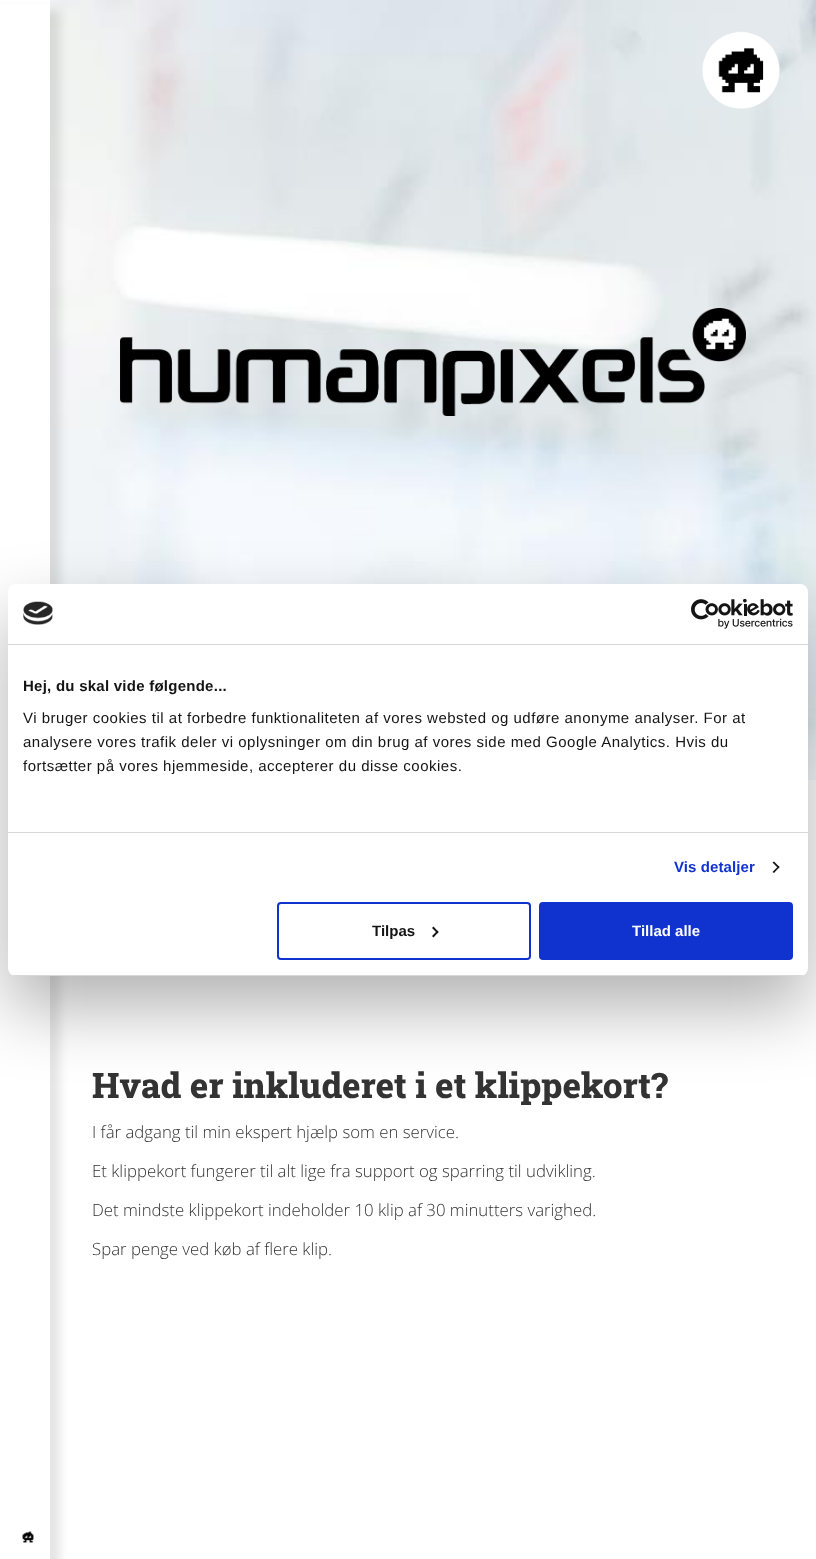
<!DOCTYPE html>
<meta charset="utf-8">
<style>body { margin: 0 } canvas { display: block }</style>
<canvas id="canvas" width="816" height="1559"></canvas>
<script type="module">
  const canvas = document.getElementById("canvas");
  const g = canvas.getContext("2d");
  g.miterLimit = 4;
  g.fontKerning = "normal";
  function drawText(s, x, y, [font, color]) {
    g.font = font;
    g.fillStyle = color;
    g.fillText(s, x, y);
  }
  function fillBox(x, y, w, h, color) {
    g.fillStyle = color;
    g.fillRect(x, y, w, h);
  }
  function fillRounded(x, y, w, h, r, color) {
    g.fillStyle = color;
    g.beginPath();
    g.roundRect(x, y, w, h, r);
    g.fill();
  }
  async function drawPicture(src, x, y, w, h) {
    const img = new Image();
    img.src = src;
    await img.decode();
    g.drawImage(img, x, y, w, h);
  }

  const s1 = ["bold 15px Liberation Sans", "#141414"];
  const s2 = ["15px Liberation Sans", "#141414"];
  const s3 = ["bold 15px Liberation Sans", "#1032CF"];
  const s4 = ["bold 15px Liberation Sans", "#FFFFFF"];
  const s5 = ["800 35px Roboto Slab", "#333333"];
  const s6 = ["300 16.8px Open Sans", "#333333"];

  fillBox(0, 0, 816, 1559, "#FFFFFF");
  await drawPicture("pic1.png", 50, 0, 766, 780);
  await drawPicture("pic2.png", 702, 31, 78, 78);
  g.fillStyle = "rgba(0, 0, 0, 0.1)";
  g.filter = "blur(5px)";
  g.beginPath();
  g.rect(-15, 10, 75, 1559);
  g.fill();
  g.filter = "none";
  fillBox(0, 4, 50, 1555, "#FFFFFF");
  g.fillStyle = "rgba(0, 0, 0, 0.3)";
  g.filter = "blur(34px)";
  g.beginPath();
  g.roundRect(8, 616, 800, 392, 8);
  g.fill();
  g.filter = "none";
  fillRounded(8, 584, 800, 392, 8, "#FFFFFF");
  fillBox(8, 644, 800, 1, "#D6D6D6");
  await drawPicture("pic3.png", 23, 601, 30, 24);
  await drawPicture("pic4.png", 691, 599, 102, 30);
  fillBox(8, 832, 800, 1, "#D6D6D6");
  g.letterSpacing = "0.25px";
  drawText("Hej, du skal vide følgende...", 23, 691, s1);
  g.letterSpacing = "0.5px";
  drawText("Vi bruger cookies til at forbedre funktionaliteten af vores websted og udføre anonyme analyser. For at", 23, 723, s2);
  drawText("analysere vores trafik deler vi oplysninger om din brug af vores side med Google Analytics. Hvis du", 23, 747, s2);
  drawText("fortsætter på vores hjemmeside, accepterer du disse cookies.", 23, 771, s2);
  g.letterSpacing = "0.1px";
  drawText("Vis detaljer", 674, 872, s3);
  g.fillStyle = "#141414";
  g.beginPath();
  g.moveTo(774, 861.5);
  g.lineTo(779.5, 867);
  g.lineTo(778.5, 868.5);
  g.lineTo(772.5, 862.5);
  g.closePath();
  g.fill();
  g.beginPath();
  g.moveTo(778.5, 866);
  g.lineTo(779.5, 867);
  g.lineTo(774, 873);
  g.lineTo(772.5, 872);
  g.closePath();
  g.fill();
  g.save();
  g.beginPath();
  g.roundRect(8, 584, 800, 392, 8);
  g.clip();
  fillBox(8, 975, 800, 1, "#D6D6D6");
  g.restore();
  g.beginPath();
  g.roundRect(278, 903, 252, 56, 3);
  g.strokeStyle = "#1032CF";
  g.lineWidth = 2;
  g.stroke();
  g.letterSpacing = "0px";
  drawText("Tilpas", 372, 936, s1);
  g.beginPath();
  g.moveTo(433.5, 926.5);
  g.lineTo(438.5, 932);
  g.lineTo(437.5, 933.5);
  g.lineTo(432, 928);
  g.closePath();
  g.fill();
  g.beginPath();
  g.moveTo(437.5, 930.5);
  g.lineTo(438.5, 932);
  g.lineTo(433.5, 937.5);
  g.lineTo(432, 936);
  g.closePath();
  g.fill();
  g.fillStyle = "#1032CF";
  g.beginPath();
  g.roundRect(540, 903, 252, 56, 3);
  g.fill();
  g.stroke();
  drawText("Tillad alle", 632, 936, s4);
  await drawPicture("pic5.png", 22, 1531, 12, 12);
  await drawPicture("pic6.png", 120, 308, 626, 108);
  drawText("Hvad er inkluderet i et klippekort?", 92, 1098, s5);
  drawText("I får adgang til min ekspert hjælp som en service.", 92, 1138, s6);
  drawText("Et klippekort fungerer til alt lige fra support og sparring til udvikling.", 92, 1177, s6);
  drawText("Det mindste klippekort indeholder 10 klip af 30 minutters varighed.", 92, 1216, s6);
  drawText("Spar penge ved køb af flere klip.", 92, 1255, s6);
</script>
